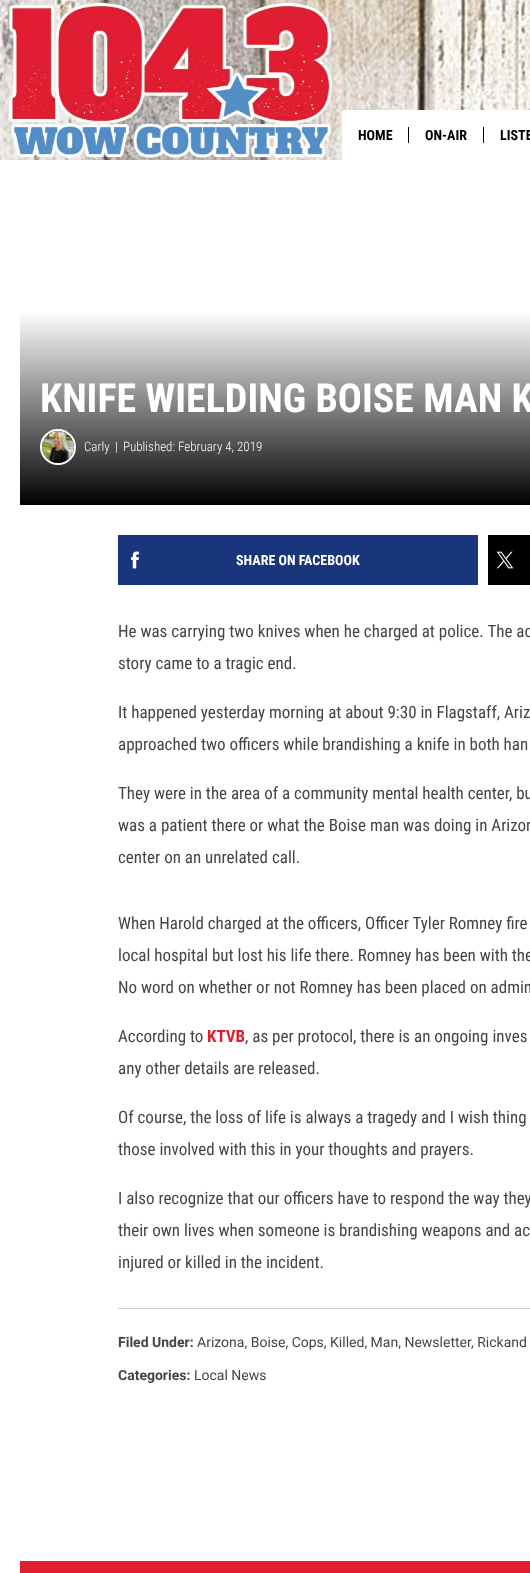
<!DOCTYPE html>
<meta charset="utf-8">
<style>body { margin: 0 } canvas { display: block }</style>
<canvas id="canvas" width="530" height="1573"></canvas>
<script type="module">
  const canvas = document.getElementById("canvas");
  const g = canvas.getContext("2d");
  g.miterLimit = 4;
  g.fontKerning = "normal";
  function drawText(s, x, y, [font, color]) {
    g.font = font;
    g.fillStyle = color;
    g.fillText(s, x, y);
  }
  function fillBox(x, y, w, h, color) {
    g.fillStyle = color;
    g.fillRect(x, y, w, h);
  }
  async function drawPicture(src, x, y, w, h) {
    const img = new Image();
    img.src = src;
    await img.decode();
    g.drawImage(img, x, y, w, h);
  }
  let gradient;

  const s1 = ["bold 14px Roboto Condensed", "#000000"];
  const s2 = ["bold 40px Roboto Condensed", "#FFFFFF"];
  const s3 = ["300 13px Roboto Condensed", "#FFFFFF"];
  const s4 = ["bold 14px Roboto Condensed", "#FFFFFF"];
  const s5 = ["17px Roboto Condensed", "#45444A"];
  const s6 = ["bold 17px Roboto Condensed", "#E01D31"];
  const s7 = ["bold 14px Roboto", "#45444A"];
  const s8 = ["14px Roboto", "#45444A"];

  fillBox(0, 0, 530, 1573, "#FFFFFF");
  await drawPicture("pic1.png", 0, 0, 530, 160);
  await drawPicture("pic2.png", 9, 3, 324, 155);
  fillBox(342, 110, 188, 50, "#FFFFFF");
  drawText("HOME", 358, 140, s1);
  fillBox(408, 127, 1, 16, "#000000");
  drawText("ON-AIR", 425, 140, s1);
  fillBox(483, 127, 1, 16, "#000000");
  drawText("LISTE", 500, 140, s1);
  gradient = g.createLinearGradient(483, 311, 483, 505);
  gradient.addColorStop(0, "#FFFFFF");
  gradient.addColorStop(1, "#000000");
  g.fillStyle = gradient;
  g.fillRect(20, 313, 510, 192);
  drawText("KNIFE WIELDING BOISE MAN K", 40, 412, s2);
  g.beginPath();
  g.arc(58, 447, 17, 0, Math.PI * 2);
  g.strokeStyle = "#FFFFFF";
  g.lineWidth = 2;
  g.stroke();
  await drawPicture("pic3.png", 42, 431, 32, 32);
  drawText("Carly", 84, 451, s3);
  drawText("|", 115, 451, s3);
  drawText("Published: February 4, 2019", 123, 451, s3);
  fillBox(118, 535, 360, 50, "#19367C");
  await drawPicture("pic4.png", 131, 551, 8, 18);
  drawText("SHARE ON FACEBOOK", 236, 565, s4);
  fillBox(488, 535, 42, 50, "#000000");
  await drawPicture("pic5.png", 496, 551, 18, 18);
  drawText("He was carrying two knives when he charged at police. The ac", 118, 637, s5);
  drawText("story came to a tragic end.", 118, 669, s5);
  drawText("It happened yesterday morning at about 9:30 in Flagstaff, Ariz", 118, 718, s5);
  drawText("approached two officers while brandishing a knife in both han", 118, 750, s5);
  drawText("They were in the area of a community mental health center, bu", 118, 799, s5);
  drawText("was a patient there or what the Boise man was doing in Arizon", 118, 831, s5);
  drawText("center on an unrelated call.", 118, 863, s5);
  drawText("When Harold charged at the officers, Officer Tyler Romney fire", 118, 929, s5);
  drawText("local hospital but lost his life there. Romney has been with the", 118, 961, s5);
  drawText("No word on whether or not Romney has been placed on admin", 118, 993, s5);
  drawText("According to", 118, 1042, s5);
  drawText("KTVB", 207, 1042, s6);
  drawText(", as per protocol, there is an ongoing inves", 245, 1042, s5);
  drawText("any other details are released.", 118, 1074, s5);
  drawText("Of course, the loss of life is always a tragedy and I wish thing", 118, 1123, s5);
  drawText("those involved with this in your thoughts and prayers.", 118, 1155, s5);
  drawText("I also recognize that our officers have to respond the way they", 118, 1204, s5);
  drawText("their own lives when someone is brandishing weapons and ac", 118, 1236, s5);
  drawText("injured or killed in the incident.", 118, 1268, s5);
  fillBox(118, 1308, 412, 1, "#D1D0D2");
  drawText("Filed Under:", 118, 1347, s7);
  drawText("Arizona, Boise, Cops, Killed, Man, Newsletter", 197, 1347, s8);
  drawText(", Rickand", 471, 1347, s8);
  drawText("Categories:", 118, 1380, s7);
  drawText("Local News", 194, 1380, s8);
  fillBox(20, 1561, 510, 12, "#E01D31");
</script>
